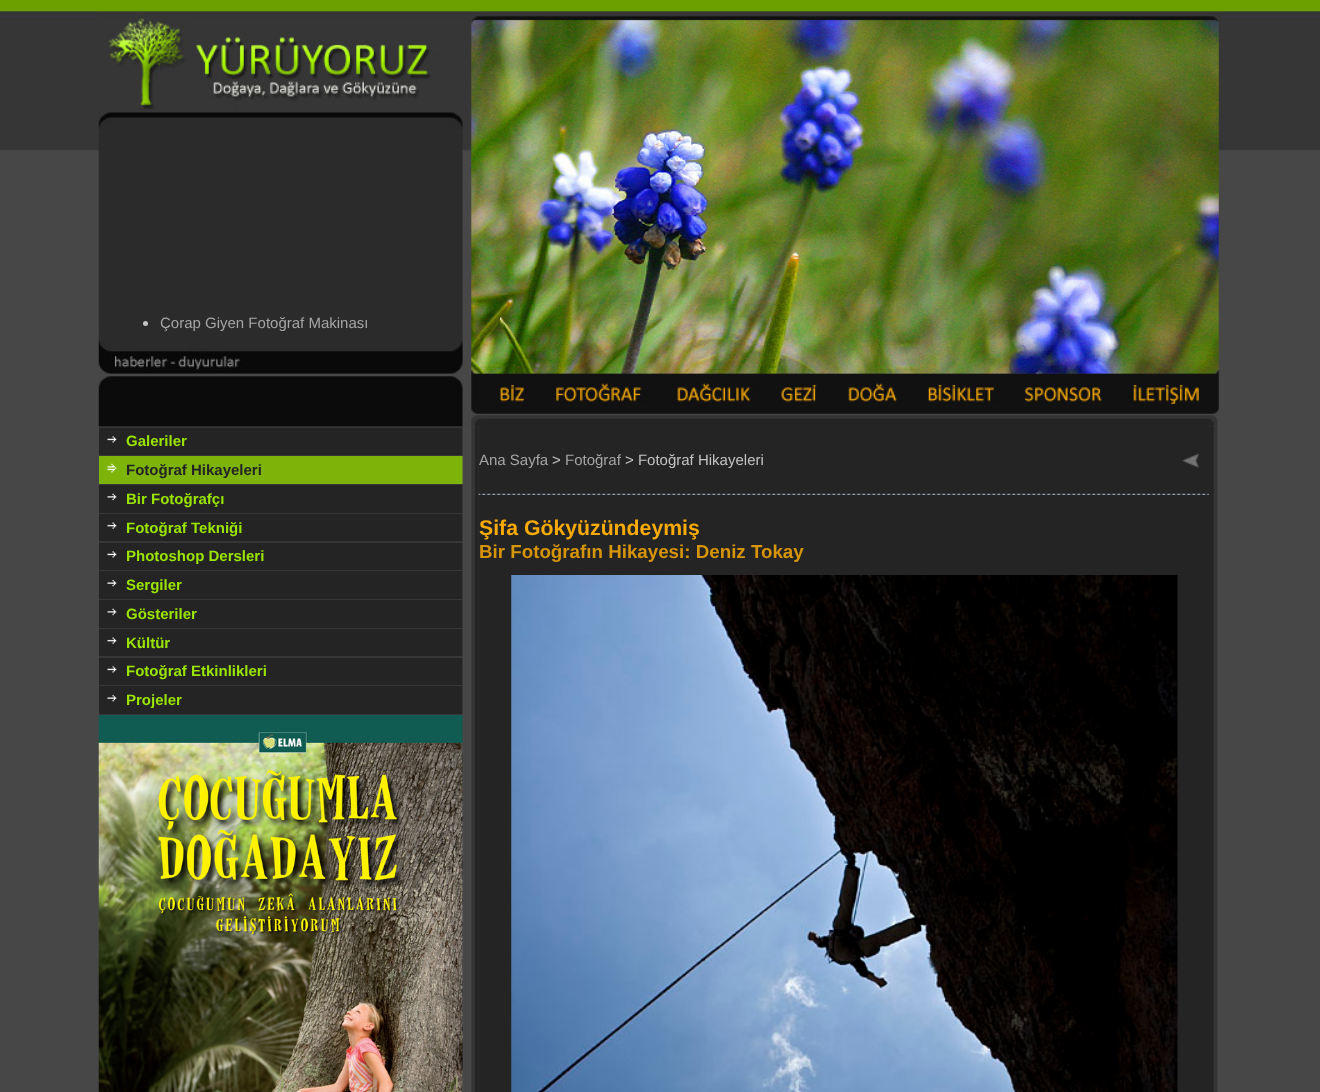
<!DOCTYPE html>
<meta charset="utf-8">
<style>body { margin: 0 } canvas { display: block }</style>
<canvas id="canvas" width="1320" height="1092"></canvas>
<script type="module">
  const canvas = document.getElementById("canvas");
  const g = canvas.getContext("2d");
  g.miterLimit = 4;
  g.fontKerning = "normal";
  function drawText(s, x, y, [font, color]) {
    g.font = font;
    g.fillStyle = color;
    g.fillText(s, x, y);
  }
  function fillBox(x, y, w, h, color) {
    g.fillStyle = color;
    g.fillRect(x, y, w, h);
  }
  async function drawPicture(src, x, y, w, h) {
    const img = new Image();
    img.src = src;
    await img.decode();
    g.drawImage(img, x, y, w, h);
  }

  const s1 = ["15px Liberation Sans", "#A5A5A5"];
  const s2 = ["bold 15px Liberation Sans", "#9AE400"];
  const s3 = ["bold 15px Liberation Sans", "#242424"];
  const s4 = ["15px Liberation Sans", "#C3C3C3"];
  const s5 = ["bold 21.25px Liberation Sans", "#F8AB08"];
  const s6 = ["bold 18.75px Liberation Sans", "#D69408"];

  fillBox(0, 0, 1320, 1092, "#FFFFFF");
  await drawPicture("pic1.png", 0, 0, 1320, 1092);
  await drawPicture("pic2.png", 98, 10, 372, 121);
  await drawPicture("pic3.png", 98, 131, 12, 243);
  fillBox(110, 131, 340, 203, "#2B2B2B");
  g.fillStyle = "#C3C3C3";
  g.beginPath();
  g.arc(145.5, 323.5, 2.5, 0, Math.PI * 2);
  g.fill();
  drawText("Çorap Giyen Fotoğraf Makinası", 160, 328, s1);
  await drawPicture("pic4.png", 450, 131, 13, 243);
  await drawPicture("pic5.png", 110, 334, 340, 40);
  await drawPicture("pic6.png", 470, 10, 751, 364);
  fillBox(99, 426, 364, 666, "#373737");
  fillBox(99, 428, 364, 27, "#242424");
  fillBox(99, 456, 364, 28, "#7CB409");
  fillBox(99, 485, 364, 28, "#242424");
  fillBox(99, 514, 364, 27, "#242424");
  fillBox(99, 543, 364, 27, "#242424");
  fillBox(99, 571, 364, 28, "#242424");
  fillBox(99, 600, 364, 28, "#242424");
  fillBox(99, 629, 364, 27, "#242424");
  fillBox(99, 658, 364, 27, "#242424");
  fillBox(99, 686, 364, 28, "#242424");
  await drawPicture("pic14.png", 462, 426, 17, 666);
  fillBox(479, 426, 730, 666, "#242424");
  await drawPicture("pic18.png", 1209, 426, 9, 666);
  await drawPicture("pic7.png", 98, 373, 1121, 54);
  await drawPicture("pic8.png", 107, 436, 10, 7);
  drawText("Galeriler", 126, 446, s2);
  await drawPicture("pic9.png", 107, 463, 10, 10);
  drawText("Fotoğraf Hikayeleri", 126, 475, s3);
  await drawPicture("pic10.png", 107, 493, 10, 8);
  drawText("Bir Fotoğrafçı", 126, 504, s2);
  await drawPicture("pic11.png", 107, 522, 10, 7);
  drawText("Fotoğraf Tekniği", 126, 533, s2);
  await drawPicture("pic8.png", 107, 551, 10, 7);
  drawText("Photoshop Dersleri", 126, 561, s2);
  await drawPicture("pic12.png", 107, 579, 10, 8);
  drawText("Sergiler", 126, 590, s2);
  await drawPicture("pic10.png", 107, 608, 10, 8);
  drawText("Gösteriler", 126, 619, s2);
  await drawPicture("pic11.png", 107, 637, 10, 7);
  drawText("Kültür", 126, 648, s2);
  await drawPicture("pic8.png", 107, 666, 10, 7);
  drawText("Fotoğraf Etkinlikleri", 126, 676, s2);
  await drawPicture("pic12.png", 107, 694, 10, 8);
  drawText("Projeler", 126, 705, s2);
  await drawPicture("pic13.png", 98, 715, 365, 377);
  drawText("Ana Sayfa", 479, 465, s1);
  drawText(">", 552, 465, s4);
  drawText("Fotoğraf", 565, 465, s1);
  drawText("> Fotoğraf Hikayeleri", 625, 465, s4);
  await drawPicture("pic15.png", 1182, 453, 17, 15);
  await drawPicture("pic16.png", 478, 493, 731, 2);
  drawText("Şifa Gökyüzündeymiş", 479, 535, s5);
  drawText("Bir Fotoğrafın Hikayesi: Deniz Tokay", 479, 558, s6);
  await drawPicture("pic17.png", 511, 575, 667, 517);
</script>
